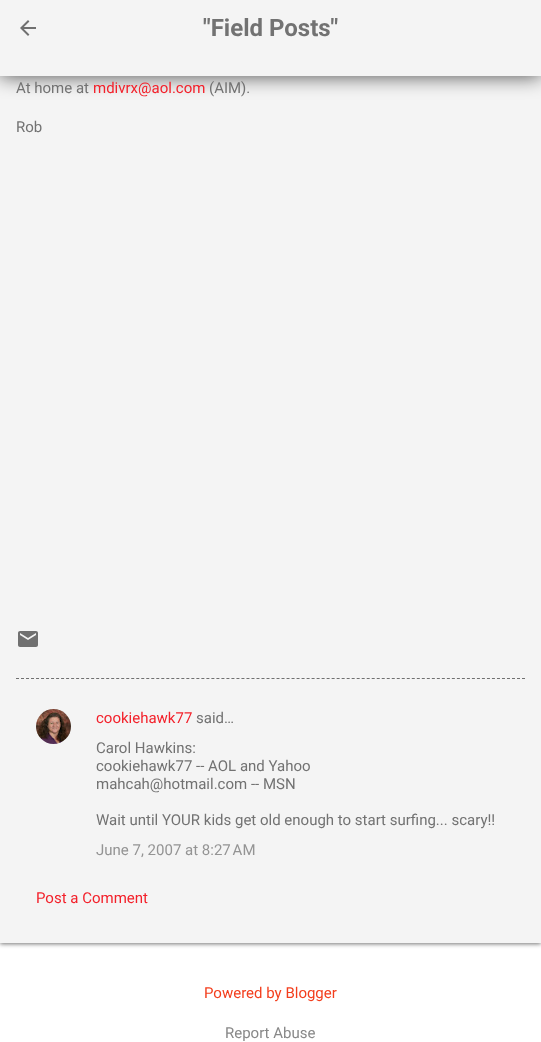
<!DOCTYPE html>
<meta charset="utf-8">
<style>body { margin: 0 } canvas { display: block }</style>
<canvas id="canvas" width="541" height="1042"></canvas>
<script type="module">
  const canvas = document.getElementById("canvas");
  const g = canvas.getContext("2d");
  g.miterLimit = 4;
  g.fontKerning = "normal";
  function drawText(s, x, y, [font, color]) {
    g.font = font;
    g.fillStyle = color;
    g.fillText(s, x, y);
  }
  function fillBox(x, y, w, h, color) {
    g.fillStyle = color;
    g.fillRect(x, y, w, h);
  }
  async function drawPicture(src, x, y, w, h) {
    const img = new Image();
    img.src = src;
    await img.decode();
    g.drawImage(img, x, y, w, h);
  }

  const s1 = ["bold 24px Roboto", "#727272"];
  const s2 = ["15px Roboto", "#727272"];
  const s3 = ["15px Roboto", "#F3212B"];
  const s4 = ["15px Roboto", "#949494"];
  const s5 = ["15px Roboto", "#F33E1D"];
  const s6 = ["15px Roboto", "#888888"];

  fillBox(0, 0, 541, 1042, "#FFFFFF");
  g.fillStyle = "#757575";
  g.filter = "blur(2px)";
  g.beginPath();
  g.rect(0, -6, 541, 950);
  g.fill();
  g.filter = "none";
  fillBox(0, 76, 541, 867, "#F4F4F4");
  g.fillStyle = "rgba(0, 0, 0, 0.7)";
  g.filter = "blur(10px)";
  g.beginPath();
  g.rect(0, 0, 541, 76);
  g.fill();
  g.filter = "none";
  fillBox(0, 0, 541, 76, "#F4F4F4");
  await drawPicture("pic1.png", 20, 20, 16, 16);
  drawText("\"Field Posts\"", 203, 36, s1);
  drawText("At home at", 16, 93, s2);
  drawText("mdivrx@aol.com", 93, 93, s3);
  drawText("(AIM).", 209, 93, s2);
  drawText("Rob", 16, 132, s2);
  await drawPicture("pic2.png", 18, 631, 20, 16);
  g.beginPath();
  g.moveTo(16, 678.5);
  g.lineTo(525, 678.5);
  g.strokeStyle = "#707070";
  g.setLineDash([3, 2.01]);
  g.stroke();
  await drawPicture("pic3.png", 36, 709, 35, 35);
  drawText("cookiehawk77", 96, 723, s3);
  drawText("said…", 196, 723, s2);
  drawText("Carol Hawkins:", 96, 753, s2);
  drawText("cookiehawk77 -- AOL and Yahoo", 96, 771, s2);
  drawText("mahcah@hotmail.com -- MSN", 96, 789, s2);
  drawText("Wait until YOUR kids get old enough to start surfing... scary!!", 96, 825, s2);
  drawText("June 7, 2007 at 8:27 AM", 96, 855, s4);
  drawText("Post a Comment", 36, 903, s3);
  drawText("Powered by Blogger", 204, 998, s5);
  drawText("Report Abuse", 225, 1038, s6);
</script>
